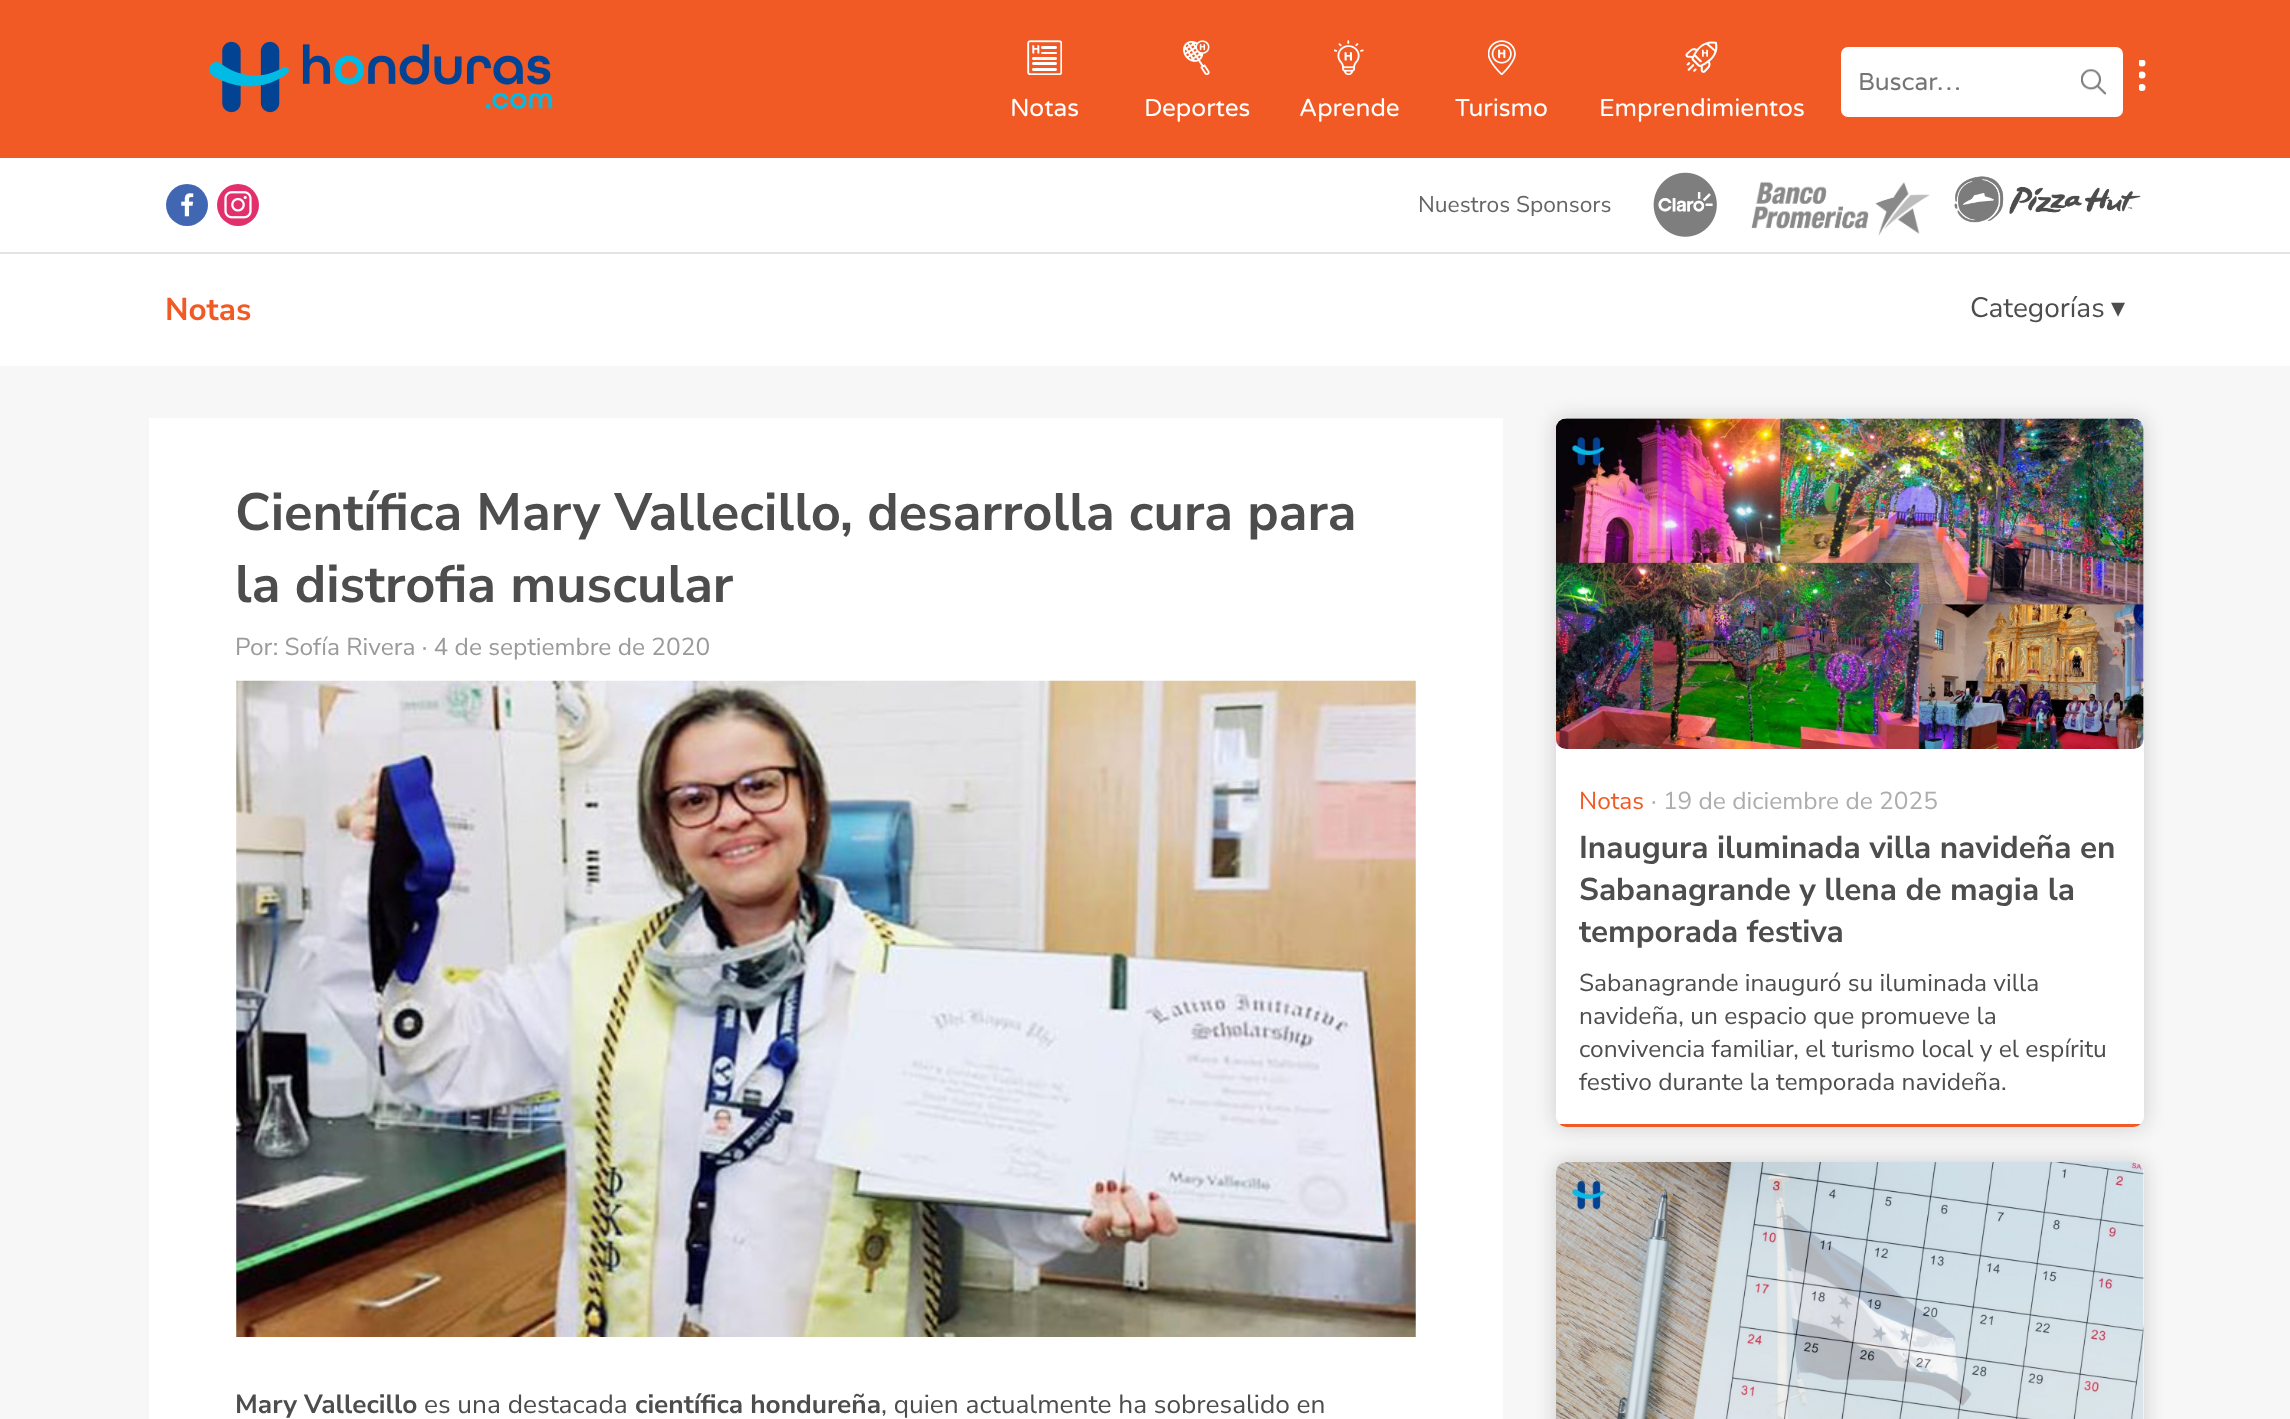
<!DOCTYPE html>
<meta charset="utf-8">
<style>body { margin: 0 } canvas { display: block }</style>
<canvas id="canvas" width="2290" height="1419"></canvas>
<script type="module">
  const canvas = document.getElementById("canvas");
  const g = canvas.getContext("2d");
  g.miterLimit = 4;
  g.fontKerning = "normal";
  function drawText(s, x, y, [font, color]) {
    g.font = font;
    g.fillStyle = color;
    g.fillText(s, x, y);
  }
  function fillBox(x, y, w, h, color) {
    g.fillStyle = color;
    g.fillRect(x, y, w, h);
  }
  function fillRounded(x, y, w, h, r, color) {
    g.fillStyle = color;
    g.beginPath();
    g.roundRect(x, y, w, h, r);
    g.fill();
  }
  async function drawPicture(src, x, y, w, h) {
    const img = new Image();
    img.src = src;
    await img.decode();
    g.drawImage(img, x, y, w, h);
  }

  const s1 = ["24.5px Varela Round", "#757575"];
  const s2 = ["24.5px Varela Round", "#FFFFFF"];
  const s3 = ["22.75px Nunito Sans", "#656565"];
  const s4 = ["bold 31.5px Nunito Sans", "#F15A24"];
  const s5 = ["28px Nunito Sans", "#4D4D4D"];
  const s6 = ["28px DejaVu Sans", "#4D4D4D"];
  const s7 = ["bold 52.5px Nunito Sans", "#4D4D4D"];
  const s8 = ["24.5px Nunito Sans", "#9A9A9A"];
  const s9 = ["bold 26.25px Nunito Sans", "#4D4D4D"];
  const s10 = ["26.25px Nunito Sans", "#4D4D4D"];
  const s11 = ["24.5px Nunito Sans", "#F15A24"];
  const s12 = ["24.5px Nunito Sans", "#ADADAD"];
  const s13 = ["bold 31.5px Nunito Sans", "#4D4D4D"];
  const s14 = ["24.5px Nunito Sans", "#4D4D4D"];

  fillBox(0, 0, 2290, 1419, "#F7F7F7");
  fillBox(0, 0, 2290, 158, "#F15A24");
  await drawPicture("pic1.png", 209, 41, 344, 72);
  fillRounded(1841, 47, 282, 70, 7, "#FFFFFF");
  drawText("Buscar…", 1858, 90, s1);
  await drawPicture("pic2.png", 2081, 69, 26, 27);
  g.save();
  g.beginPath();
  g.rect(2139, 60, 7, 31);
  g.clip();
  g.fillStyle = "#FFFFFF";
  g.beginPath();
  g.arc(2142, 63, 3.5, 0, Math.PI * 2);
  g.fill();
  g.beginPath();
  g.arc(2142, 75, 3.5, 0, Math.PI * 2);
  g.fill();
  g.beginPath();
  g.arc(2142, 87.5, 3.5, 0, Math.PI * 2);
  g.fill();
  g.restore();
  await drawPicture("pic3.png", 1027, 40, 35, 35);
  drawText("Notas", 1010, 116, s2);
  await drawPicture("pic4.png", 1183, 40, 27, 35);
  drawText("Deportes", 1144, 116, s2);
  await drawPicture("pic5.png", 1334, 40, 30, 35);
  drawText("Aprende", 1299, 116, s2);
  await drawPicture("pic6.png", 1488, 40, 28, 35);
  drawText("Turismo", 1455, 116, s2);
  await drawPicture("pic7.png", 1685, 41, 33, 32);
  drawText("Emprendimientos", 1599, 116, s2);
  fillBox(0, 158, 2290, 94, "#FFFFFF");
  fillBox(0, 252, 2290, 2, "#E3E3E3");
  g.fillStyle = "#4267B2";
  g.beginPath();
  g.arc(187, 205, 21, 0, Math.PI * 2);
  g.fill();
  await drawPicture("pic8.png", 181, 193, 13, 24);
  g.fillStyle = "#E1306C";
  g.beginPath();
  g.arc(238, 205, 21, 0, Math.PI * 2);
  g.fill();
  await drawPicture("pic9.png", 224, 191, 28, 28);
  drawText("Nuestros Sponsors", 1418, 212, s3);
  await drawPicture("pic10.png", 1653, 172, 64, 65);
  await drawPicture("pic11.png", 1751, 181, 179, 55);
  await drawPicture("pic12.png", 1954, 176, 187, 47);
  fillBox(0, 254, 2290, 112, "#FFFFFF");
  drawText("Notas", 165, 320, s4);
  drawText("Categorías", 1970, 317, s5);
  drawText("▾", 2111, 317, s6);
  fillBox(149, 418, 1354, 1001, "#FFFFFF");
  drawText("Científica Mary Vallecillo, desarrolla cura para", 235, 530, s7);
  drawText("la distrofia muscular", 235, 602, s7);
  drawText("Por: Sofía Rivera · 4 de septiembre de 2020", 235, 655, s8);
  await drawPicture("pic13.png", 236, 680, 1180, 657);
  drawText("Mary Vallecillo", 235, 1413, s9);
  drawText("es una destacada", 424, 1413, s10);
  drawText("científica hondureña", 635, 1413, s9);
  drawText(", quien actualmente ha sobresalido en", 881, 1413, s10);
  g.fillStyle = "rgba(176, 176, 176, 0.5)";
  g.filter = "blur(9.5px)";
  g.beginPath();
  g.roundRect(1554, 417, 592, 712, 12);
  g.fill();
  g.filter = "none";
  fillRounded(1556, 418, 588, 709, 11, "#FFFFFF");
  await drawPicture("pic14.png", 1556, 418, 588, 331);
  g.save();
  g.beginPath();
  g.roundRect(1556, 418, 588, 709, 11);
  g.clip();
  fillBox(1556, 1124, 588, 3, "#F15A24");
  g.restore();
  drawText("Notas", 1579, 809, s11);
  drawText("· 19 de diciembre de 2025", 1651, 809, s12);
  drawText("Inaugura iluminada villa navideña en", 1579, 858, s13);
  drawText("Sabanagrande y llena de magia la", 1579, 900, s13);
  drawText("temporada festiva", 1579, 942, s13);
  drawText("Sabanagrande inauguró su iluminada villa", 1579, 991, s14);
  drawText("navideña, un espacio que promueve la", 1579, 1024, s14);
  drawText("convivencia familiar, el turismo local y el espíritu", 1579, 1057, s14);
  drawText("festivo durante la temporada navideña.", 1579, 1090, s14);
  g.fillStyle = "rgba(176, 176, 176, 0.5)";
  g.filter = "blur(9.5px)";
  g.beginPath();
  g.roundRect(1554, 1160, 592, 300, 12);
  g.fill();
  g.filter = "none";
  fillRounded(1556, 1162, 588, 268, 11, "#FFFFFF");
  await drawPicture("pic15.png", 1556, 1162, 588, 257);
</script>
